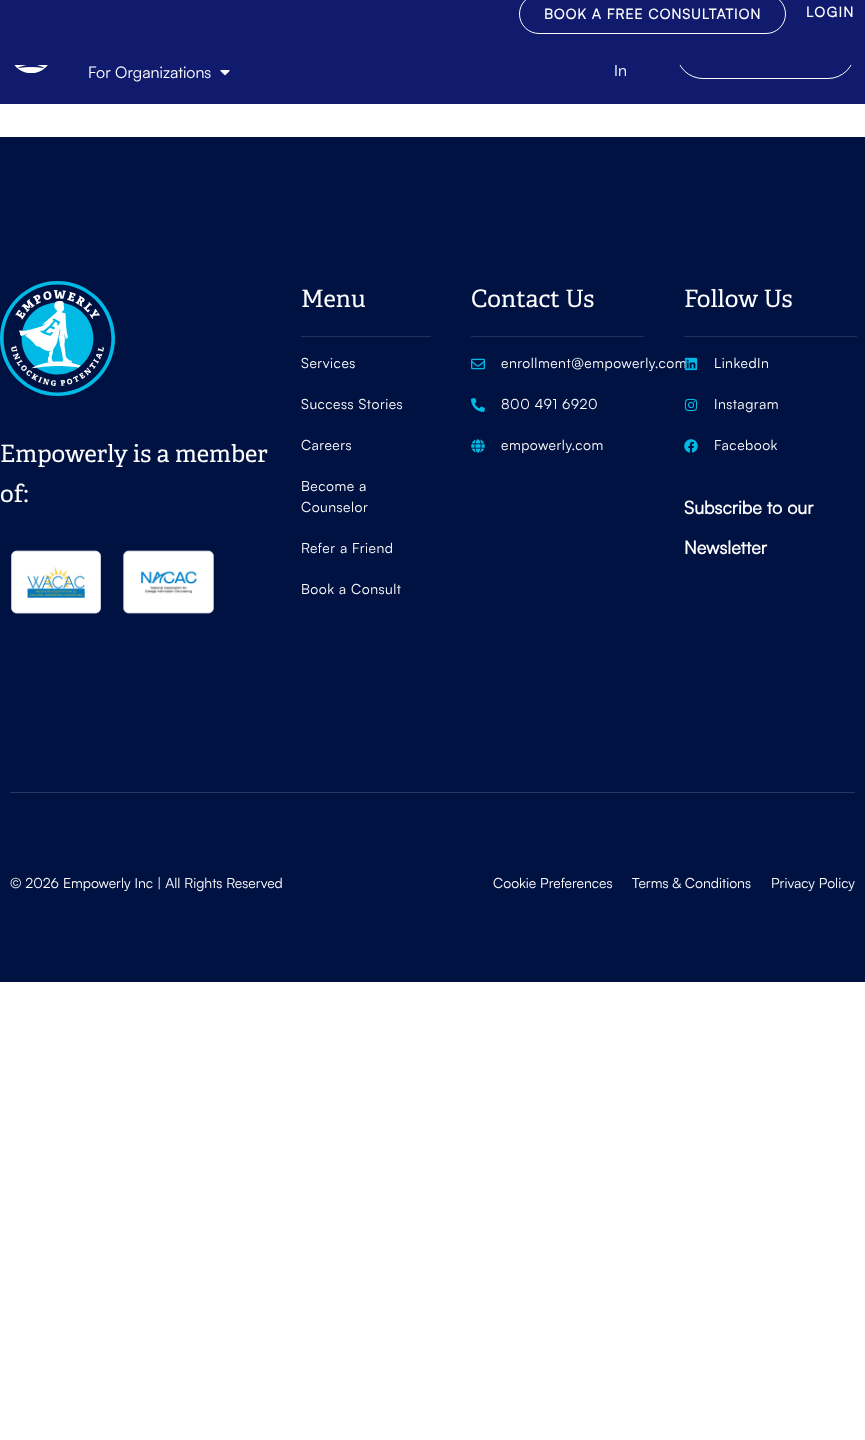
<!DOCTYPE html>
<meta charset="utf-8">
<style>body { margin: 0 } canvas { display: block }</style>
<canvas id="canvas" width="865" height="1440"></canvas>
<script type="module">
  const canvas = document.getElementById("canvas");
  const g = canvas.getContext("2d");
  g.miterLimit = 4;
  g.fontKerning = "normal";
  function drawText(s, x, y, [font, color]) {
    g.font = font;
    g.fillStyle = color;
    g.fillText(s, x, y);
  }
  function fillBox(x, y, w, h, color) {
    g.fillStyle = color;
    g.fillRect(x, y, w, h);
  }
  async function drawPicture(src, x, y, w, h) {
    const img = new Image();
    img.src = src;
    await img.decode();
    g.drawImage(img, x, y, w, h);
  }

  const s1 = ["16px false", "#FFFFFF"];
  const s2 = ["bold 14px false", "#FFFFFF"];
  const s3 = ["24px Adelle", "#FFFFFF"];
  const s4 = ["14px false", "#FFFFFF"];
  const s5 = ["bold 18px false", "#FFFFFF"];

  fillBox(0, 0, 865, 1440, "#FFFFFF");
  fillBox(0, 65, 865, 39, "#101B6E");
  drawText("In", 614, 76, s1);
  g.beginPath();
  g.roundRect(676.5, 25.5, 178, 53, 26.5);
  g.strokeStyle = "#FFFFFF";
  g.stroke();
  fillBox(0, 0, 865, 65, "#101B6E");
  g.beginPath();
  g.roundRect(519.5, -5.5, 266, 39, 19.5);
  g.stroke();
  g.letterSpacing = "1px";
  drawText("BOOK A FREE CONSULTATION", 544, 19, s2);
  g.letterSpacing = "1.5px";
  drawText("LOGIN", 806, 17, s2);
  await drawPicture("pic1.png", 14, 65, 34, 8);
  g.letterSpacing = "0px";
  drawText("For Organizations", 88, 78, s1);
  await drawPicture("pic2.png", 220, 70, 10, 6);
  fillBox(0, 137, 865, 845, "#001242");
  await drawPicture("pic3.png", 0, 281, 115, 115);
  drawText("Empowerly is a member", 0, 462, s3);
  drawText("of:", 0, 502, s3);
  await drawPicture("pic4.png", 11, 550, 90, 64);
  await drawPicture("pic5.png", 123, 550, 91, 64);
  drawText("Menu", 301, 307, s3);
  fillBox(301, 336, 130, 1, "#21315B");
  g.letterSpacing = "0.5px";
  drawText("Services", 301, 368, s4);
  drawText("Success Stories", 301, 409, s4);
  drawText("Careers", 301, 450, s4);
  drawText("Become a", 301, 491, s4);
  drawText("Counselor", 301, 512, s4);
  drawText("Refer a Friend", 301, 553, s4);
  drawText("Book a Consult", 301, 594, s4);
  g.letterSpacing = "0px";
  drawText("Contact Us", 471, 307, s3);
  fillBox(471, 336, 173, 1, "#21315B");
  await drawPicture("pic6.png", 471, 358, 14, 12);
  g.letterSpacing = "0.5px";
  drawText("enrollment@empowerly.com", 501, 368, s4);
  await drawPicture("pic7.png", 471, 398, 14, 14);
  drawText("800 491 6920", 501, 409, s4);
  await drawPicture("pic8.png", 471, 439, 14, 14);
  drawText("empowerly.com", 501, 450, s4);
  g.letterSpacing = "0px";
  drawText("Follow Us", 684, 307, s3);
  fillBox(684, 336, 173, 1, "#21315B");
  await drawPicture("pic9.png", 684, 357, 14, 14);
  g.letterSpacing = "0.5px";
  drawText("LinkedIn", 714, 368, s4);
  await drawPicture("pic10.png", 684, 398, 14, 14);
  drawText("Instagram", 714, 409, s4);
  await drawPicture("pic11.png", 684, 439, 14, 14);
  drawText("Facebook", 714, 450, s4);
  g.letterSpacing = "0px";
  drawText("Subscribe to our", 684, 514, s5);
  drawText("Newsletter", 684, 554, s5);
  fillBox(10, 792, 845, 1, "#26365E");
  drawText("© 2026 Empowerly Inc | All Rights Reserved", 10, 888, s4);
  drawText("Cookie Preferences", 493, 888, s4);
  drawText("Terms & Conditions", 632, 888, s4);
  drawText("Privacy Policy", 771, 888, s4);
</script>
